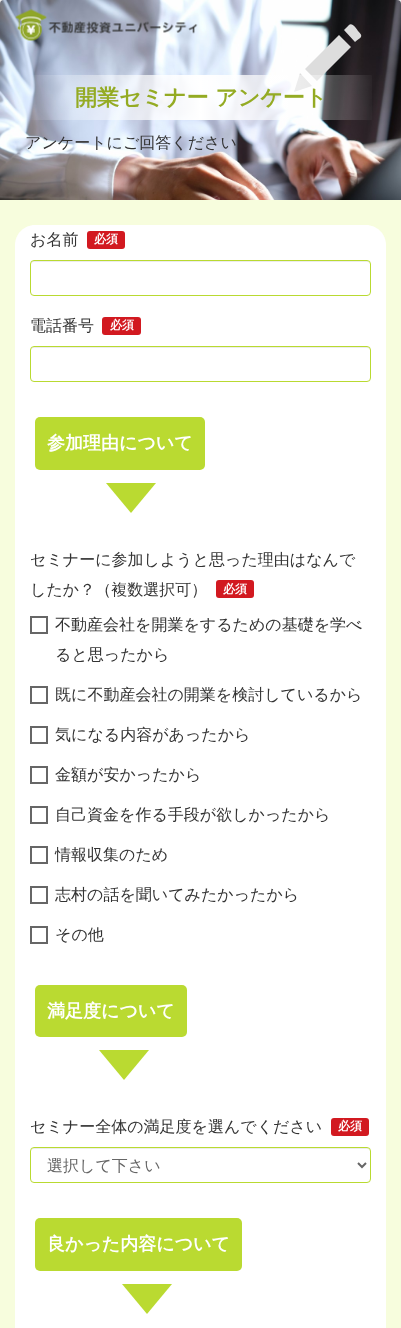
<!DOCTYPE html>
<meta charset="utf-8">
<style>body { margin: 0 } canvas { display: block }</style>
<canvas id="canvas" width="401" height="1328"></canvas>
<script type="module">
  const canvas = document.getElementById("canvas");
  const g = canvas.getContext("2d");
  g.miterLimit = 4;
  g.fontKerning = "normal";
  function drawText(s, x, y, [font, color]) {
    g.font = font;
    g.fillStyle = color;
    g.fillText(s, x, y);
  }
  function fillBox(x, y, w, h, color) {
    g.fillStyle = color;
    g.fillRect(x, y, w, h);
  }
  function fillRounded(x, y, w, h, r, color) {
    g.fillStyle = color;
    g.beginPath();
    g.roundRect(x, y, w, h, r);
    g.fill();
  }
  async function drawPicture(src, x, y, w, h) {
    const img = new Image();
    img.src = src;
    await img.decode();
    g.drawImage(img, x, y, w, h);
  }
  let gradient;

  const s1 = ["bold 22px WenQuanYi Zen Hei", "#94AB23"];
  const s2 = ["500 16px WenQuanYi Zen Hei", "#333333"];
  const s3 = ["bold 12px WenQuanYi Zen Hei", "#FFFFFF"];
  const s4 = ["bold 18px WenQuanYi Zen Hei", "#FFFFFF"];
  const s5 = ["500 16px WenQuanYi Zen Hei", "#666666"];

  fillBox(0, 0, 401, 1328, "#EEEEEE");
  await drawPicture("pic1.png", 0, 0, 401, 200);
  g.fillStyle = "#DDDDDD";
  g.beginPath();
  g.moveTo(349, 25);
  g.bezierCurveTo(352, 22, 357, 29, 358, 31);
  g.bezierCurveTo(364, 37, 361, 37, 355, 42);
  g.lineTo(344, 30);
  g.closePath();
  g.moveTo(351, 47);
  g.lineTo(317, 81);
  g.lineTo(305, 69);
  g.lineTo(339, 35);
  g.closePath();
  g.moveTo(312, 86);
  g.lineTo(294, 92);
  g.lineTo(300, 73);
  g.closePath();
  g.fill();
  gradient = g.createLinearGradient(25, 98, 376, 97);
  gradient.addColorStop(0, "rgba(255, 255, 255, 0)");
  gradient.addColorStop(0.5, "#FFFFFF");
  gradient.addColorStop(1, "rgba(255, 255, 255, 0)");
  g.fillStyle = gradient;
  g.fillRect(30, 75, 342, 45);
  await drawPicture("pic2.png", 15, 9, 183, 32);
  drawText("開業セミナー アンケート", 75, 105, s1);
  drawText("アンケートにご回答ください", 25, 148, s2);
  fillBox(0, 200, 401, 1128, "#F7FDDD");
  g.fillStyle = "#FFFFFF";
  g.beginPath();
  g.moveTo(35, 225);
  g.lineTo(366, 225);
  g.bezierCurveTo(377, 225, 386, 234, 386, 245);
  g.lineTo(386, 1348);
  g.lineTo(15, 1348);
  g.lineTo(15, 245);
  g.bezierCurveTo(15, 234, 24, 225, 35, 225);
  g.closePath();
  g.fill();
  drawText("お名前", 30, 245, s2);
  fillRounded(87, 231, 38, 18, 3, "#D21920");
  drawText("必須", 94, 243, s3);
  g.fillStyle = "#ECECEC";
  g.beginPath();
  g.moveTo(34, 262);
  g.lineTo(367, 262);
  g.bezierCurveTo(369, 262, 370, 263, 370, 265);
  g.bezierCurveTo(370, 263, 369, 261, 367, 261);
  g.lineTo(34, 261);
  g.bezierCurveTo(32, 261, 31, 263, 31, 265);
  g.bezierCurveTo(31, 263, 32, 262, 34, 262);
  g.closePath();
  g.fill();
  g.beginPath();
  g.roundRect(30.5, 260.5, 340, 35, 3.5);
  g.strokeStyle = "#B9DA31";
  g.stroke();
  drawText("電話番号", 30, 331, s2);
  fillRounded(102, 317, 39, 18, 3, "#D21920");
  drawText("必須", 110, 329, s3);
  g.fillStyle = "#ECECEC";
  g.beginPath();
  g.moveTo(34, 348);
  g.lineTo(367, 348);
  g.bezierCurveTo(369, 348, 370, 349, 370, 351);
  g.bezierCurveTo(370, 349, 369, 347, 367, 347);
  g.lineTo(34, 347);
  g.bezierCurveTo(32, 347, 31, 349, 31, 351);
  g.bezierCurveTo(31, 349, 32, 348, 34, 348);
  g.closePath();
  g.fill();
  g.beginPath();
  g.roundRect(30.5, 346.5, 340, 35, 3.5);
  g.stroke();
  fillRounded(35, 417, 170, 53, 5, "#BADA31");
  drawText("参加理由について", 47, 449, s4);
  g.fillStyle = "#BADA31";
  g.beginPath();
  g.moveTo(106, 483);
  g.lineTo(156, 483);
  g.lineTo(131, 513);
  g.closePath();
  g.fill();
  drawText("セミナーに参加しようと思った理由はなんで", 30, 565, s2);
  drawText("したか？（複数選択可）", 30, 595, s2);
  fillRounded(216, 580, 38, 18, 3, "#D21920");
  drawText("必須", 223, 593, s3);
  g.strokeStyle = "#666666";
  g.lineWidth = 2;
  g.strokeRect(31, 617, 16, 16);
  drawText("不動産会社を開業をするための基礎を学べ", 55, 630, s2);
  drawText("ると思ったから", 55, 660, s2);
  g.strokeRect(31, 687, 16, 16);
  drawText("既に不動産会社の開業を検討しているから", 55, 700, s2);
  g.strokeRect(31, 727, 16, 16);
  drawText("気になる内容があったから", 55, 740, s2);
  g.strokeRect(31, 767, 16, 16);
  drawText("金額が安かったから", 55, 780, s2);
  g.strokeRect(31, 807, 16, 16);
  drawText("自己資金を作る手段が欲しかったから", 55, 820, s2);
  g.strokeRect(31, 847, 16, 16);
  drawText("情報収集のため", 55, 860, s2);
  g.strokeRect(31, 887, 16, 16);
  drawText("志村の話を聞いてみたかったから", 55, 900, s2);
  g.strokeRect(31, 927, 16, 16);
  drawText("その他", 55, 940, s2);
  fillRounded(35, 985, 152, 52, 5, "#BADA31");
  drawText("満足度について", 47, 1017, s4);
  g.fillStyle = "#BADA31";
  g.beginPath();
  g.moveTo(99, 1050);
  g.lineTo(149, 1050);
  g.lineTo(124, 1080);
  g.closePath();
  g.fill();
  drawText("セミナー全体の満足度を選んでください", 30, 1132, s2);
  fillRounded(331, 1118, 38, 18, 3, "#D21920");
  drawText("必須", 338, 1130, s3);
  g.fillStyle = "#ECECEC";
  g.beginPath();
  g.moveTo(34, 1149);
  g.lineTo(367, 1149);
  g.bezierCurveTo(369, 1149, 370, 1150, 370, 1152);
  g.bezierCurveTo(370, 1150, 369, 1148, 367, 1148);
  g.lineTo(34, 1148);
  g.bezierCurveTo(32, 1148, 31, 1150, 31, 1152);
  g.bezierCurveTo(31, 1150, 32, 1149, 34, 1149);
  g.closePath();
  g.fill();
  g.beginPath();
  g.roundRect(30.5, 1147.5, 340, 35, 3.5);
  g.strokeStyle = "#B9DA31";
  g.lineWidth = 1;
  g.stroke();
  g.beginPath();
  g.moveTo(358, 1163);
  g.lineTo(362, 1167);
  g.lineTo(366, 1163);
  g.strokeStyle = "#666666";
  g.lineWidth = 2;
  g.stroke();
  drawText("選択して下さい", 47, 1171, s5);
  fillRounded(35, 1218, 207, 53, 5, "#BADA31");
  drawText("良かった内容について", 47, 1250, s4);
  g.fillStyle = "#BADA31";
  g.beginPath();
  g.moveTo(122, 1284);
  g.lineTo(172, 1284);
  g.lineTo(147, 1314);
  g.closePath();
  g.fill();
</script>
